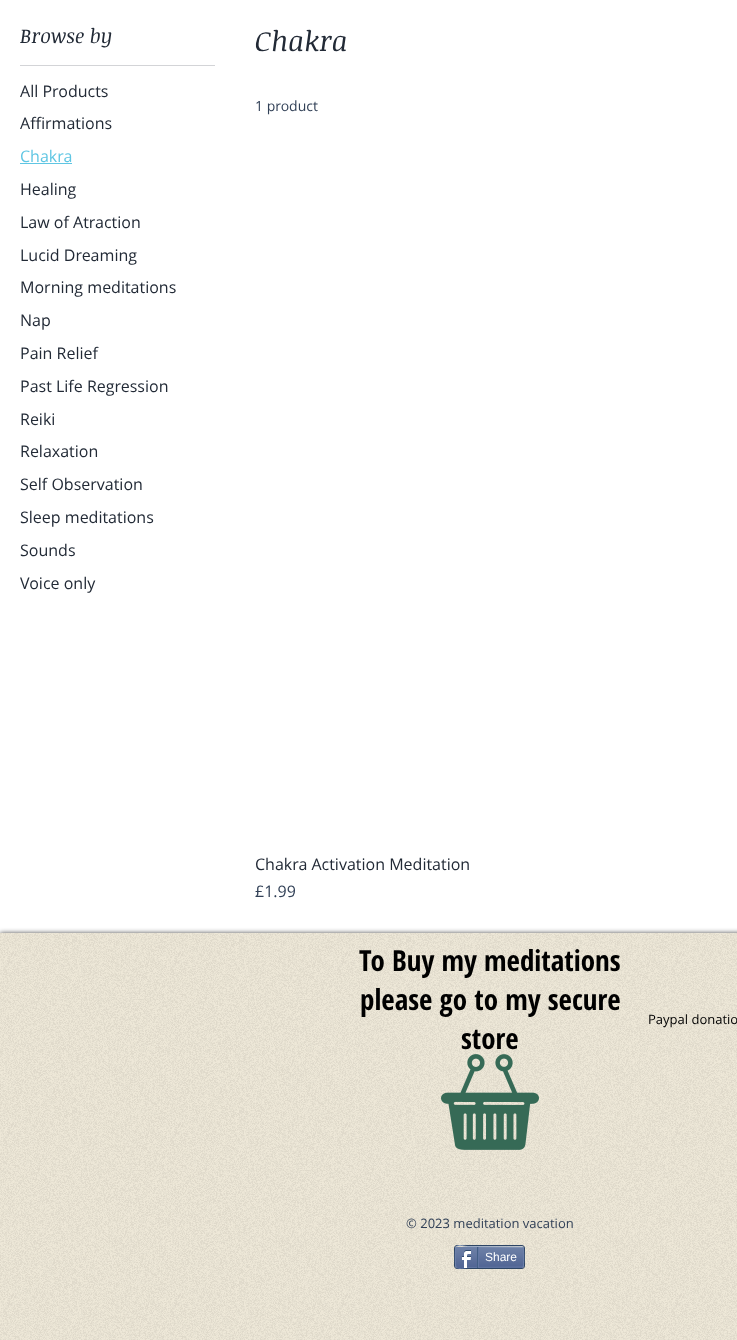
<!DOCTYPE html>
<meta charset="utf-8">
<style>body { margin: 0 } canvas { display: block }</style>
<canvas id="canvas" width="737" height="1340"></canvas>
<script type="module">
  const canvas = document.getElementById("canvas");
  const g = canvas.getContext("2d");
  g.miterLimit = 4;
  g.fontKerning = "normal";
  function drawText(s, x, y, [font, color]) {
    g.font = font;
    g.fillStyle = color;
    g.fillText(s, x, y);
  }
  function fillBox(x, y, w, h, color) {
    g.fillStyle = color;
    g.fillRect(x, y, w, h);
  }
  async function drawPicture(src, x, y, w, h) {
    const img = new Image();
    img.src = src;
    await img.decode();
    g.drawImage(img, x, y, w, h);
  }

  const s1 = ["italic 20px Noticia Text", "#222A36"];
  const s2 = ["16px Open Sans", "#222A36"];
  const s3 = ["16px Open Sans", "#5FC6E3"];
  const s4 = ["italic 28px Noticia Text", "#222A36"];
  const s5 = ["14px Open Sans", "#324157"];
  const s6 = ["16px Open Sans", "#324157"];
  const s7 = ["bold 29px Open Sans Condensed", "#000000"];
  const s8 = ["13px Open Sans", "#000000"];
  const s9 = ["13px Open Sans", "#324157"];
  const s10 = ["12px Liberation Sans", "#FFFFFF"];

  fillBox(0, 0, 737, 1340, "#FFFFFF");
  fillBox(20, 65, 195, 1, "#D3D4D7");
  drawText("Browse by", 20, 43, s1);
  drawText("All Products", 20, 97, s2);
  drawText("Affirmations", 20, 129, s2);
  drawText("Chakra", 20, 162, s3);
  fillBox(20, 163, 52, 1, "#5FC6E3");
  drawText("Healing", 20, 195, s2);
  drawText("Law of Atraction", 20, 228, s2);
  drawText("Lucid Dreaming", 20, 261, s2);
  drawText("Morning meditations", 20, 293, s2);
  drawText("Nap", 20, 326, s2);
  drawText("Pain Relief", 20, 359, s2);
  drawText("Past Life Regression", 20, 392, s2);
  drawText("Reiki", 20, 425, s2);
  drawText("Relaxation", 20, 457, s2);
  drawText("Self Observation", 20, 490, s2);
  drawText("Sleep meditations", 20, 523, s2);
  drawText("Sounds", 20, 556, s2);
  drawText("Voice only", 20, 589, s2);
  drawText("Chakra", 255, 51, s4);
  drawText("1 product", 255, 111, s5);
  drawText("Chakra Activation Meditation", 255, 870, s2);
  drawText("£1.99", 255, 897, s6);
  g.fillStyle = "rgba(0, 0, 0, 0.7)";
  g.filter = "blur(2.5px)";
  g.beginPath();
  g.rect(0, 933, 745, 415);
  g.fill();
  g.filter = "none";
  fillBox(0, 933, 737, 407, "#EEE8D8");
  await drawPicture("pic1.png", 0, 933, 737, 407);
  drawText("To Buy my meditations", 359, 971, s7);
  drawText("please go to my secure", 360, 1010, s7);
  drawText("store", 461, 1049, s7);
  drawText("Paypal donatio", 648, 1024, s8);
  await drawPicture("pic2.png", 441, 1054, 98, 96);
  drawText("© 2023 meditation vacation", 406, 1228, s9);
  g.beginPath();
  g.roundRect(454.5, 1245.5, 70, 23, 2.5);
  g.strokeStyle = "#2D4565";
  g.stroke();
  await drawPicture("pic3.png", 455, 1247, 69, 21);
  g.beginPath();
  g.moveTo(456, 1247);
  g.bezierCurveTo(459, 1244, 464, 1246.5, 468, 1246.5);
  g.lineTo(523, 1247);
  g.strokeStyle = "#9AABC6";
  g.stroke();
  g.beginPath();
  g.moveTo(523, 1247);
  g.bezierCurveTo(524, 1247.5, 524, 1266.5, 523, 1267);
  g.strokeStyle = "#6F83AD";
  g.stroke();
  g.beginPath();
  g.moveTo(523, 1267);
  g.lineTo(468, 1267.5);
  g.bezierCurveTo(464, 1267.5, 459, 1270, 456, 1267);
  g.strokeStyle = "#6176A3";
  g.stroke();
  g.beginPath();
  g.moveTo(456, 1267);
  g.bezierCurveTo(455, 1266.5, 455, 1247.5, 456, 1247);
  g.strokeStyle = "#6F83AD";
  g.stroke();
  await drawPicture("pic4.png", 461, 1250, 10, 18);
  fillBox(477, 1247, 1, 21, "#425E85");
  drawText("Share", 485, 1261, s10);
  fillBox(478, 1247, 1, 20, "#6176A3");
</script>
